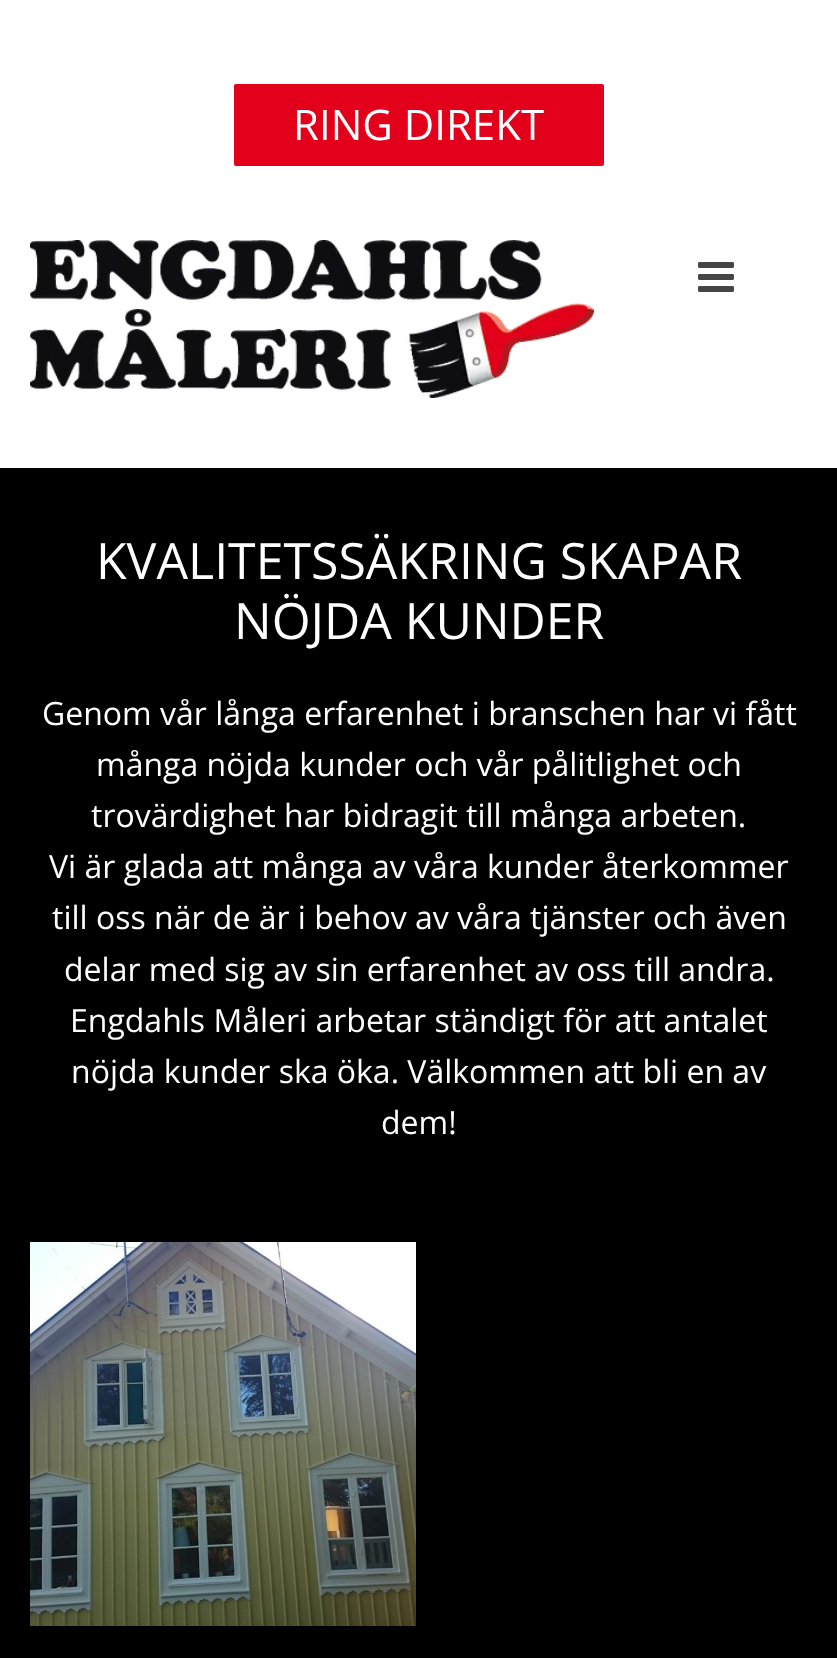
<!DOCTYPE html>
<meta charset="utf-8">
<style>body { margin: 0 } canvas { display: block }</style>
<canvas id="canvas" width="837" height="1658"></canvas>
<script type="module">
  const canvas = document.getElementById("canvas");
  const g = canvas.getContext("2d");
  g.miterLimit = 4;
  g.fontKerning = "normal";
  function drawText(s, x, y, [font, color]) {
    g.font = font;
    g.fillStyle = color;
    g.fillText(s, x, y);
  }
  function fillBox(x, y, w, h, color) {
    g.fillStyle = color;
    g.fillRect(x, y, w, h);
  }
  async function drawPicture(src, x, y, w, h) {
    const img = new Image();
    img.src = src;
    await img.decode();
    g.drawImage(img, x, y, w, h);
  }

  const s1 = ["42px Open Sans", "#FFFFFF"];
  const s2 = ["50px Open Sans", "#FFFFFF"];
  const s3 = ["32px Open Sans", "#FFFFFF"];

  fillBox(0, 0, 837, 1658, "#FFFFFF");
  g.fillStyle = "#E2001A";
  g.beginPath();
  g.roundRect(232, 82, 374, 86, 4);
  g.fill();
  g.strokeStyle = "#FFFFFF";
  g.lineWidth = 4;
  g.stroke();
  drawText("RING DIREKT", 293, 140, s1);
  await drawPicture("pic1.png", 30, 240, 564, 158);
  await drawPicture("pic2.png", 698, 262, 36, 30);
  fillBox(0, 468, 837, 1190, "#000000");
  drawText("KVALITETSSÄKRING SKAPAR", 96, 579, s2);
  drawText("NÖJDA KUNDER", 234, 639, s2);
  drawText("Genom vår långa erfarenhet i branschen har vi fått", 42, 725, s3);
  drawText("många nöjda kunder och vår pålitlighet och", 96, 776, s3);
  drawText("trovärdighet har bidragit till många arbeten.", 91, 827, s3);
  drawText("Vi är glada att många av våra kunder återkommer", 49, 878, s3);
  drawText("till oss när de är i behov av våra tjänster och även", 52, 929, s3);
  drawText("delar med sig av sin erfarenhet av oss till andra.", 64, 981, s3);
  drawText("Engdahls Måleri arbetar ständigt för att antalet", 70, 1032, s3);
  drawText("nöjda kunder ska öka. Välkommen att bli en av", 71, 1083, s3);
  drawText("dem!", 381, 1134, s3);
  await drawPicture("pic3.png", 30, 1242, 386, 384);
</script>
